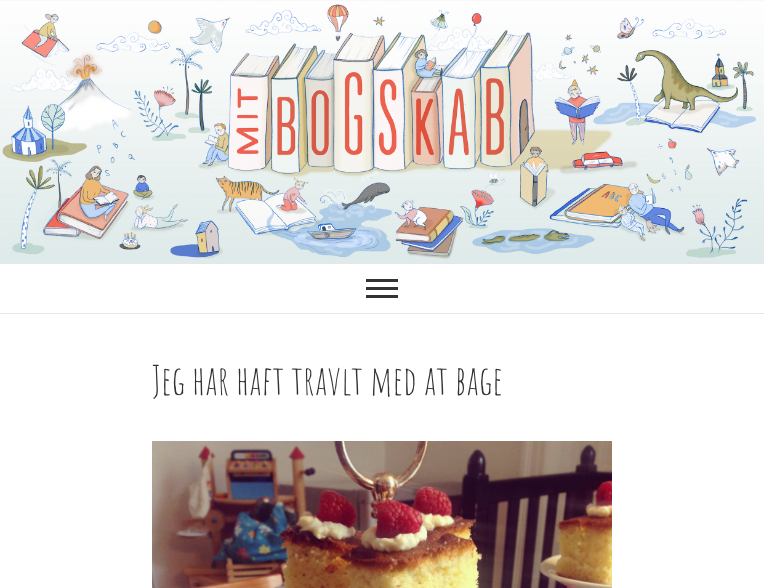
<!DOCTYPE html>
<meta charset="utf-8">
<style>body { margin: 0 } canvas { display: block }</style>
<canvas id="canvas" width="764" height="588"></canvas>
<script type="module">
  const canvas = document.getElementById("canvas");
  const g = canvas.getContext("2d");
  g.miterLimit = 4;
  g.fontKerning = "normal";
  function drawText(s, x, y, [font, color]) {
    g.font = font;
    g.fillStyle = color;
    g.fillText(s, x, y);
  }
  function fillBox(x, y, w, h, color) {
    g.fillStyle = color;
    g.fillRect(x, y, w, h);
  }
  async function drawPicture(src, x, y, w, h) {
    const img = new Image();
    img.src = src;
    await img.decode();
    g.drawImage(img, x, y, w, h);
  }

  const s1 = ["40px Amatic SC", "#333333"];

  fillBox(0, 0, 764, 588, "#FFFFFF");
  await drawPicture("pic1.png", 0, 0, 764, 263);
  fillBox(0, 263, 764, 1, "#E6E6E6");
  fillBox(0, 313, 764, 1, "#E6E6E6");
  fillBox(366, 279, 32, 3, "#333333");
  fillBox(366, 287, 32, 3, "#333333");
  fillBox(366, 295, 32, 3, "#333333");
  drawText("Jeg har haft travlt med at bage", 152, 395, s1);
  await drawPicture("pic2.png", 152, 441, 460, 147);
</script>
